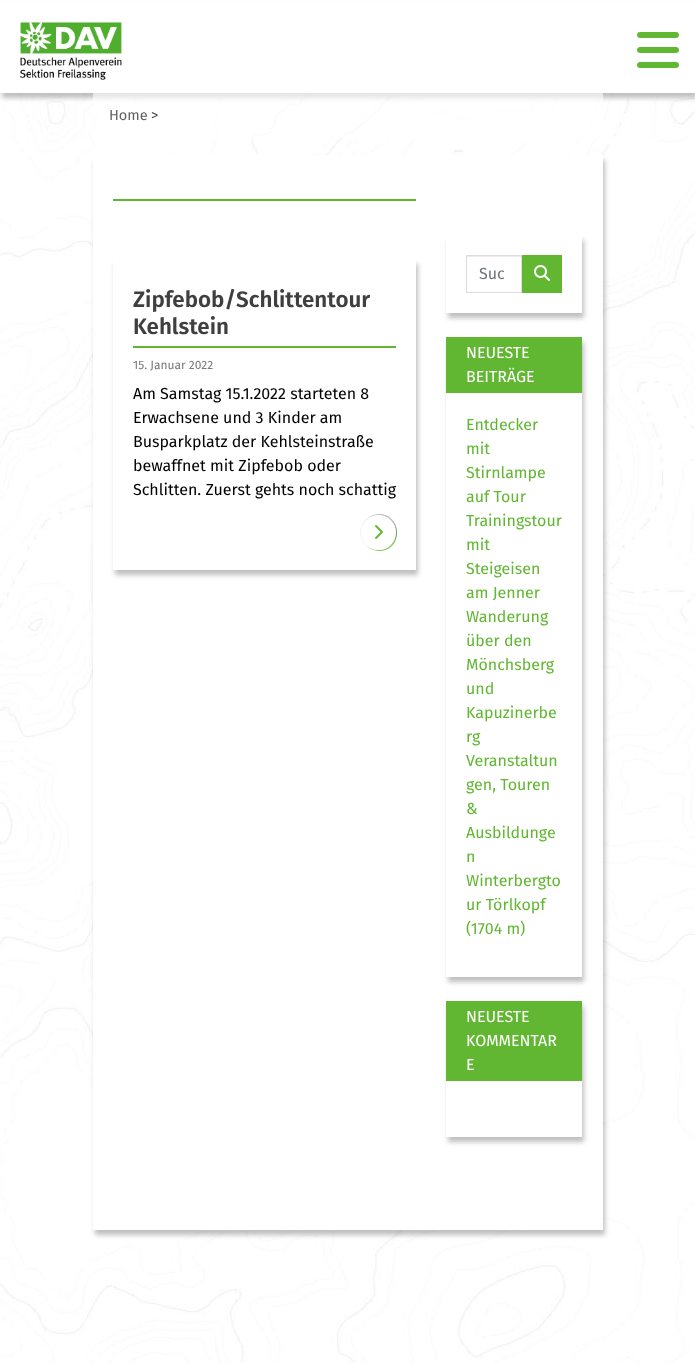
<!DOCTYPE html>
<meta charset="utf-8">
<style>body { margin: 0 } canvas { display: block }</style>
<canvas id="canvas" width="695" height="1363"></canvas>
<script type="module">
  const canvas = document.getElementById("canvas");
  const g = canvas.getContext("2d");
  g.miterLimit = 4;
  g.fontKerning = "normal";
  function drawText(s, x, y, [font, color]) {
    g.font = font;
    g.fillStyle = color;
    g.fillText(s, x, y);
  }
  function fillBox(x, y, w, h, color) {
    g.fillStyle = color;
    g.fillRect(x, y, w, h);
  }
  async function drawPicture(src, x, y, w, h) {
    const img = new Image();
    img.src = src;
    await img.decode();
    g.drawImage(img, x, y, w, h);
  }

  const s1 = ["14.5px Fira Sans", "#626262"];
  const s2 = ["14.5px Fira Sans", "#3F3F3F"];
  const s3 = ["600 22.4px Fira Sans", "#3F3F3F"];
  const s4 = ["12px Fira Sans", "#7A7A7A"];
  const s5 = ["16px Fira Sans", "#000000"];
  const s6 = ["16px Fira Sans", "#6C757D"];
  const s7 = ["16px Fira Sans", "#FFFFFF"];
  const s8 = ["16px Fira Sans", "#61B732"];

  fillBox(0, 0, 695, 1363, "#FFFFFF");
  await drawPicture("pic1.png", 0, 93, 695, 1270);
  g.fillStyle = "rgba(0, 0, 0, 0.25)";
  g.filter = "blur(2.5px)";
  g.beginPath();
  g.rect(2, 5, 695, 93);
  g.fill();
  g.filter = "none";
  fillBox(0, 1, 695, 92, "#FFFFFF");
  await drawPicture("pic2.png", 20, 22, 102, 58);
  await drawPicture("pic3.png", 637, 32, 42, 36);
  fillBox(93, 93, 510, 46, "rgba(255, 255, 255, 0.6)");
  drawText("Home", 109, 120, s1);
  drawText(">", 151, 120, s2);
  g.fillStyle = "rgba(0, 0, 0, 0.25)";
  g.filter = "blur(2.5px)";
  g.beginPath();
  g.rect(95, 160, 510, 1075);
  g.fill();
  g.filter = "none";
  fillBox(93, 155, 510, 1075, "#FFFFFF");
  fillBox(113, 199, 303, 2, "#61B732");
  g.save();
  g.beginPath();
  g.moveTo(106, 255);
  g.lineTo(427, 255);
  g.lineTo(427, 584);
  g.lineTo(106, 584);
  g.closePath();
  g.moveTo(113, 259);
  g.lineTo(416, 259);
  g.lineTo(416, 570);
  g.lineTo(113, 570);
  g.closePath();
  g.clip("evenodd");
  g.fillStyle = "rgba(0, 0, 0, 0.25)";
  g.filter = "blur(2.5px)";
  g.beginPath();
  g.rect(115, 264, 303, 311);
  g.fill();
  g.filter = "none";
  g.restore();
  fillBox(133, 346, 263, 2, "#61B732");
  drawText("Zipfebob/Schlittentour", 133, 307, s3);
  drawText("Kehlstein", 133, 334, s3);
  drawText("15. Januar 2022", 133, 369, s4);
  drawText("Am Samstag 15.1.2022 starteten 8", 133, 399, s5);
  drawText("Erwachsene und 3 Kinder am", 133, 423, s5);
  drawText("Busparkplatz der Kehlsteinstraße", 133, 447, s5);
  drawText("bewaffnet mit Zipfebob oder", 133, 471, s5);
  drawText("Schlitten. Zuerst gehts noch schattig", 133, 495, s5);
  g.fillStyle = "#89C965";
  g.beginPath();
  g.moveTo(366.5, 545.5);
  g.bezierCurveTo(373.5, 552.5, 385, 553, 392, 546);
  g.bezierCurveTo(399, 539, 398.5, 527.5, 391.5, 520.5);
  g.bezierCurveTo(397.5, 527.5, 397.5, 538.5, 391, 545);
  g.bezierCurveTo(384.5, 551.5, 373.5, 551.5, 366.5, 545.5);
  g.closePath();
  g.fill();
  g.fillStyle = "rgba(0, 0, 0, 0.25)";
  g.filter = "blur(0.5px)";
  g.beginPath();
  g.roundRect(362, 514, 35, 35, 17.5);
  g.fill();
  g.filter = "none";
  g.fillStyle = "rgba(0, 0, 0, 0.05)";
  g.filter = "blur(0.5px)";
  g.beginPath();
  g.roundRect(360, 515, 35, 35, 17.5);
  g.fill();
  g.filter = "none";
  g.fillStyle = "#FFFFFF";
  g.beginPath();
  g.arc(378.5, 532.5, 17.5, 0, Math.PI * 2);
  g.fill();
  await drawPicture("pic4.png", 375, 525, 8, 14);
  g.save();
  g.beginPath();
  g.moveTo(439, 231);
  g.lineTo(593, 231);
  g.lineTo(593, 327);
  g.lineTo(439, 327);
  g.closePath();
  g.moveTo(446, 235);
  g.lineTo(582, 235);
  g.lineTo(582, 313);
  g.lineTo(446, 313);
  g.closePath();
  g.clip("evenodd");
  g.fillStyle = "rgba(0, 0, 0, 0.25)";
  g.filter = "blur(2.5px)";
  g.beginPath();
  g.rect(448, 240, 136, 78);
  g.fill();
  g.filter = "none";
  g.restore();
  fillBox(467, 256, 54, 1, "#ECECEC");
  g.strokeStyle = "#DDDDDD";
  g.strokeRect(466.5, 255.5, 55, 37);
  drawText("Suc", 479, 279, s6);
  fillBox(522, 255, 40, 38, "#61B732");
  await drawPicture("pic5.png", 534, 265, 16, 16);
  g.save();
  g.beginPath();
  g.moveTo(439, 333);
  g.lineTo(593, 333);
  g.lineTo(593, 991);
  g.lineTo(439, 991);
  g.closePath();
  g.moveTo(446, 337);
  g.lineTo(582, 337);
  g.lineTo(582, 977);
  g.lineTo(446, 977);
  g.closePath();
  g.clip("evenodd");
  g.fillStyle = "rgba(0, 0, 0, 0.25)";
  g.filter = "blur(2.5px)";
  g.beginPath();
  g.rect(448, 342, 136, 640);
  g.fill();
  g.filter = "none";
  g.restore();
  fillBox(446, 337, 136, 56, "#61B732");
  drawText("NEUESTE", 466, 358, s7);
  drawText("BEITRÄGE", 466, 382, s7);
  drawText("Entdecker", 466, 430, s8);
  drawText("mit", 466, 454, s8);
  drawText("Stirnlampe", 466, 478, s8);
  drawText("auf Tour", 466, 502, s8);
  drawText("Trainingstour", 466, 526, s8);
  drawText("mit", 466, 550, s8);
  drawText("Steigeisen", 466, 574, s8);
  drawText("am Jenner", 466, 598, s8);
  drawText("Wanderung", 466, 622, s8);
  drawText("über den", 466, 646, s8);
  drawText("Mönchsberg", 466, 670, s8);
  drawText("und", 466, 694, s8);
  drawText("Kapuzinerbe", 466, 718, s8);
  drawText("rg", 466, 742, s8);
  drawText("Veranstaltun", 466, 766, s8);
  drawText("gen, Touren", 466, 790, s8);
  drawText("&", 466, 814, s8);
  drawText("Ausbildunge", 466, 838, s8);
  drawText("n", 466, 862, s8);
  drawText("Winterbergto", 466, 886, s8);
  drawText("ur Törlkopf", 466, 910, s8);
  drawText("(1704 m)", 466, 934, s8);
  g.save();
  g.beginPath();
  g.moveTo(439, 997);
  g.lineTo(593, 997);
  g.lineTo(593, 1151);
  g.lineTo(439, 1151);
  g.closePath();
  g.moveTo(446, 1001);
  g.lineTo(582, 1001);
  g.lineTo(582, 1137);
  g.lineTo(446, 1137);
  g.closePath();
  g.clip("evenodd");
  g.fillStyle = "rgba(0, 0, 0, 0.25)";
  g.filter = "blur(2.5px)";
  g.beginPath();
  g.rect(448, 1006, 136, 136);
  g.fill();
  g.filter = "none";
  g.restore();
  fillBox(446, 1001, 136, 80, "#61B732");
  drawText("NEUESTE", 466, 1022, s7);
  drawText("KOMMENTAR", 466, 1046, s7);
  drawText("E", 466, 1070, s7);
</script>
